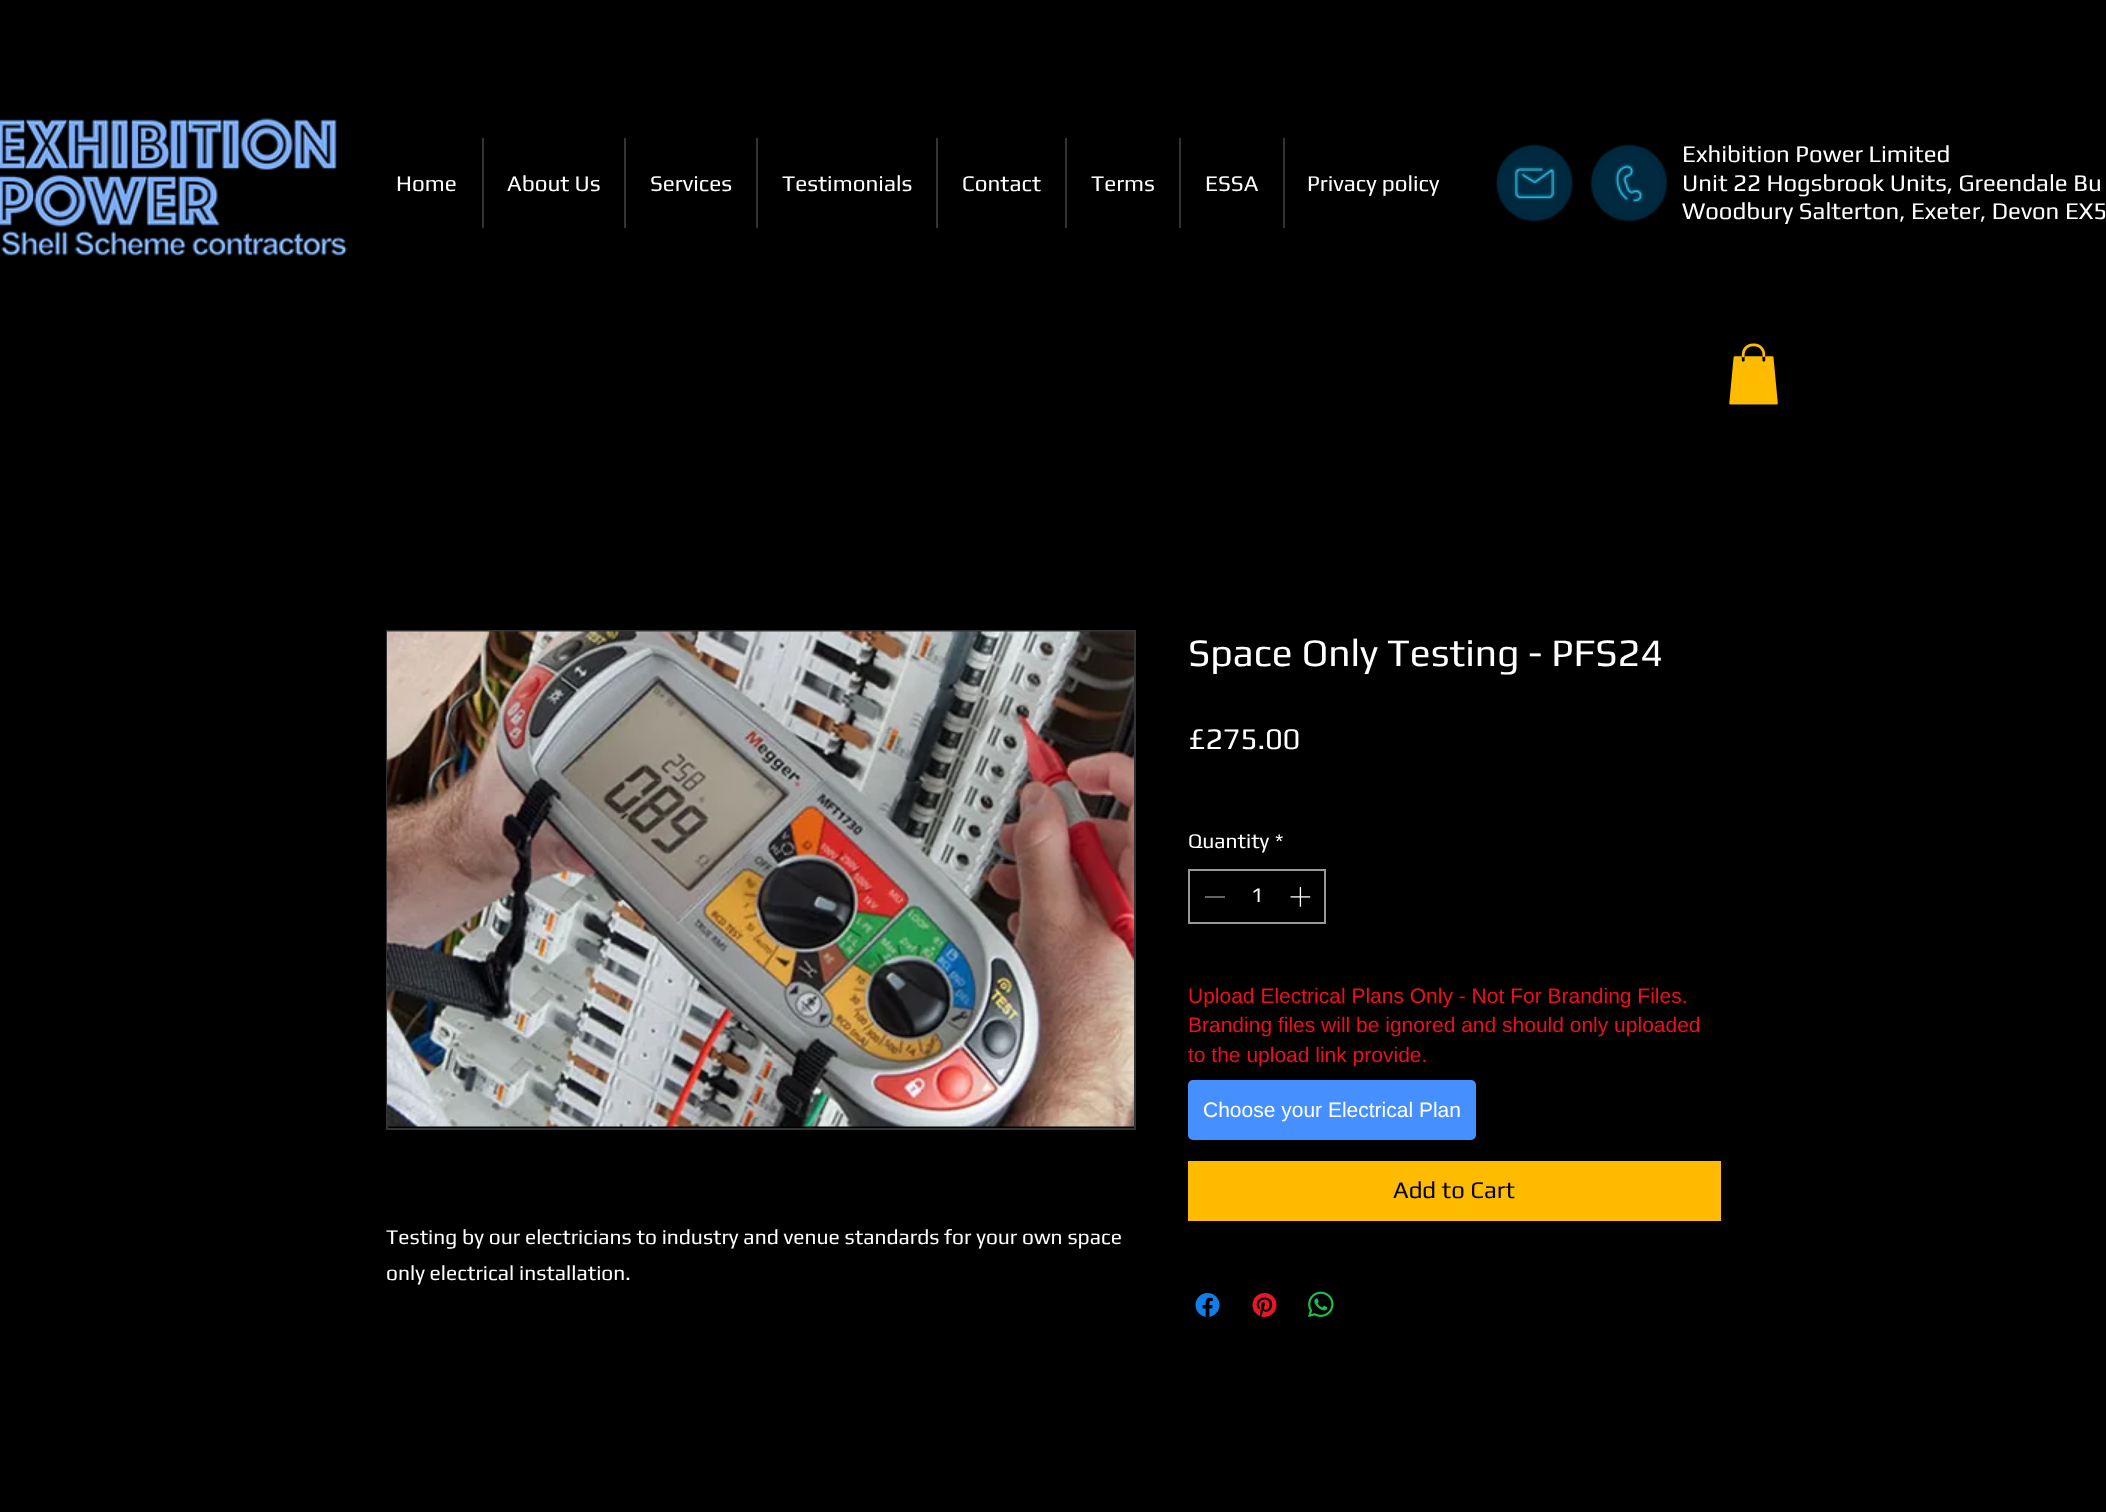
<!DOCTYPE html>
<meta charset="utf-8">
<style>body { margin: 0 } canvas { display: block }</style>
<canvas id="canvas" width="2106" height="1512"></canvas>
<script type="module">
  const canvas = document.getElementById("canvas");
  const g = canvas.getContext("2d");
  g.miterLimit = 4;
  g.fontKerning = "normal";
  function drawText(s, x, y, [font, color]) {
    g.font = font;
    g.fillStyle = color;
    g.fillText(s, x, y);
  }
  function fillBox(x, y, w, h, color) {
    g.fillStyle = color;
    g.fillRect(x, y, w, h);
  }
  function fillRounded(x, y, w, h, r, color) {
    g.fillStyle = color;
    g.beginPath();
    g.roundRect(x, y, w, h, r);
    g.fill();
  }
  async function drawPicture(src, x, y, w, h) {
    const img = new Image();
    img.src = src;
    await img.decode();
    g.drawImage(img, x, y, w, h);
  }

  const s1 = ["22.5px Play", "#FFFFFF"];
  const s2 = ["24px Play", "#FFFFFF"];
  const s3 = ["39px Play", "#FFFFFF"];
  const s4 = ["30px Play", "#FFFFFF"];
  const s5 = ["21px Play", "#FFFFFF"];
  const s6 = ["21px Liberation Sans", "#EE0E1E"];
  const s7 = ["21px Liberation Sans", "#FFFFFF"];
  const s8 = ["24px Play", "#000000"];

  fillBox(0, 0, 2106, 1512, "#000000");
  await drawPicture("pic1.png", 0, 118, 347, 139);
  drawText("Home", 396, 191, s1);
  fillBox(482, 138, 2, 90, "#333333");
  drawText("About Us", 507, 191, s1);
  fillBox(624, 138, 2, 90, "#333333");
  drawText("Services", 650, 191, s1);
  fillBox(756, 138, 2, 90, "#333333");
  drawText("Testimonials", 782, 191, s1);
  fillBox(936, 138, 2, 90, "#333333");
  drawText("Contact", 962, 191, s1);
  fillBox(1065, 138, 2, 90, "#333333");
  drawText("Terms", 1091, 191, s1);
  fillBox(1179, 138, 2, 90, "#333333");
  drawText("ESSA", 1205, 191, s1);
  fillBox(1283, 138, 2, 90, "#333333");
  drawText("Privacy policy", 1307, 191, s1);
  await drawPicture("pic2.png", 1495, 144, 79, 78);
  await drawPicture("pic3.png", 1590, 144, 78, 78);
  drawText("Exhibition Power Limited", 1682, 162, s2);
  drawText("Unit 22 Hogsbrook Units, Greendale Bu", 1682, 191, s2);
  drawText("Woodbury Salterton, Exeter, Devon EX5", 1682, 219, s2);
  await drawPicture("pic4.png", 1729, 343, 49, 62);
  drawText("Space Only Testing - PFS24", 1188, 666, s3);
  drawText("£275.00", 1188, 749, s4);
  drawText("Quantity", 1188, 848, s5);
  drawText("*", 1275, 848, s5);
  g.strokeStyle = "#999999";
  g.lineWidth = 2;
  g.strokeRect(1189, 870, 136, 53);
  fillBox(1205, 896, 20, 2, "#646464");
  drawText("1", 1251, 902, s5);
  await drawPicture("pic5.png", 1290, 887, 21, 20);
  drawText("Upload Electrical Plans Only - Not For Branding Files.", 1188, 1003, s6);
  drawText("Branding files will be ignored and should only uploaded", 1188, 1032, s6);
  drawText("to the upload link provide.", 1188, 1062, s6);
  fillRounded(1188, 1080, 288, 60, 5, "#458FFF");
  drawText("Choose your Electrical Plan", 1203, 1117, s7);
  fillBox(1188, 1161, 533, 60, "#FFBB00");
  drawText("Add to Cart", 1393, 1198, s8);
  await drawPicture("pic6.png", 1195, 1293, 25, 24);
  await drawPicture("pic7.png", 1252, 1293, 25, 24);
  await drawPicture("pic8.png", 1308, 1291, 26, 27);
  g.strokeStyle = "#333333";
  g.strokeRect(387, 631, 748, 498);
  await drawPicture("pic9.png", 387, 631, 747, 496);
  drawText("Testing by our electricians to industry and venue standards for your own space", 386, 1244, s5);
  drawText("only electrical installation.", 386, 1280, s5);
</script>
